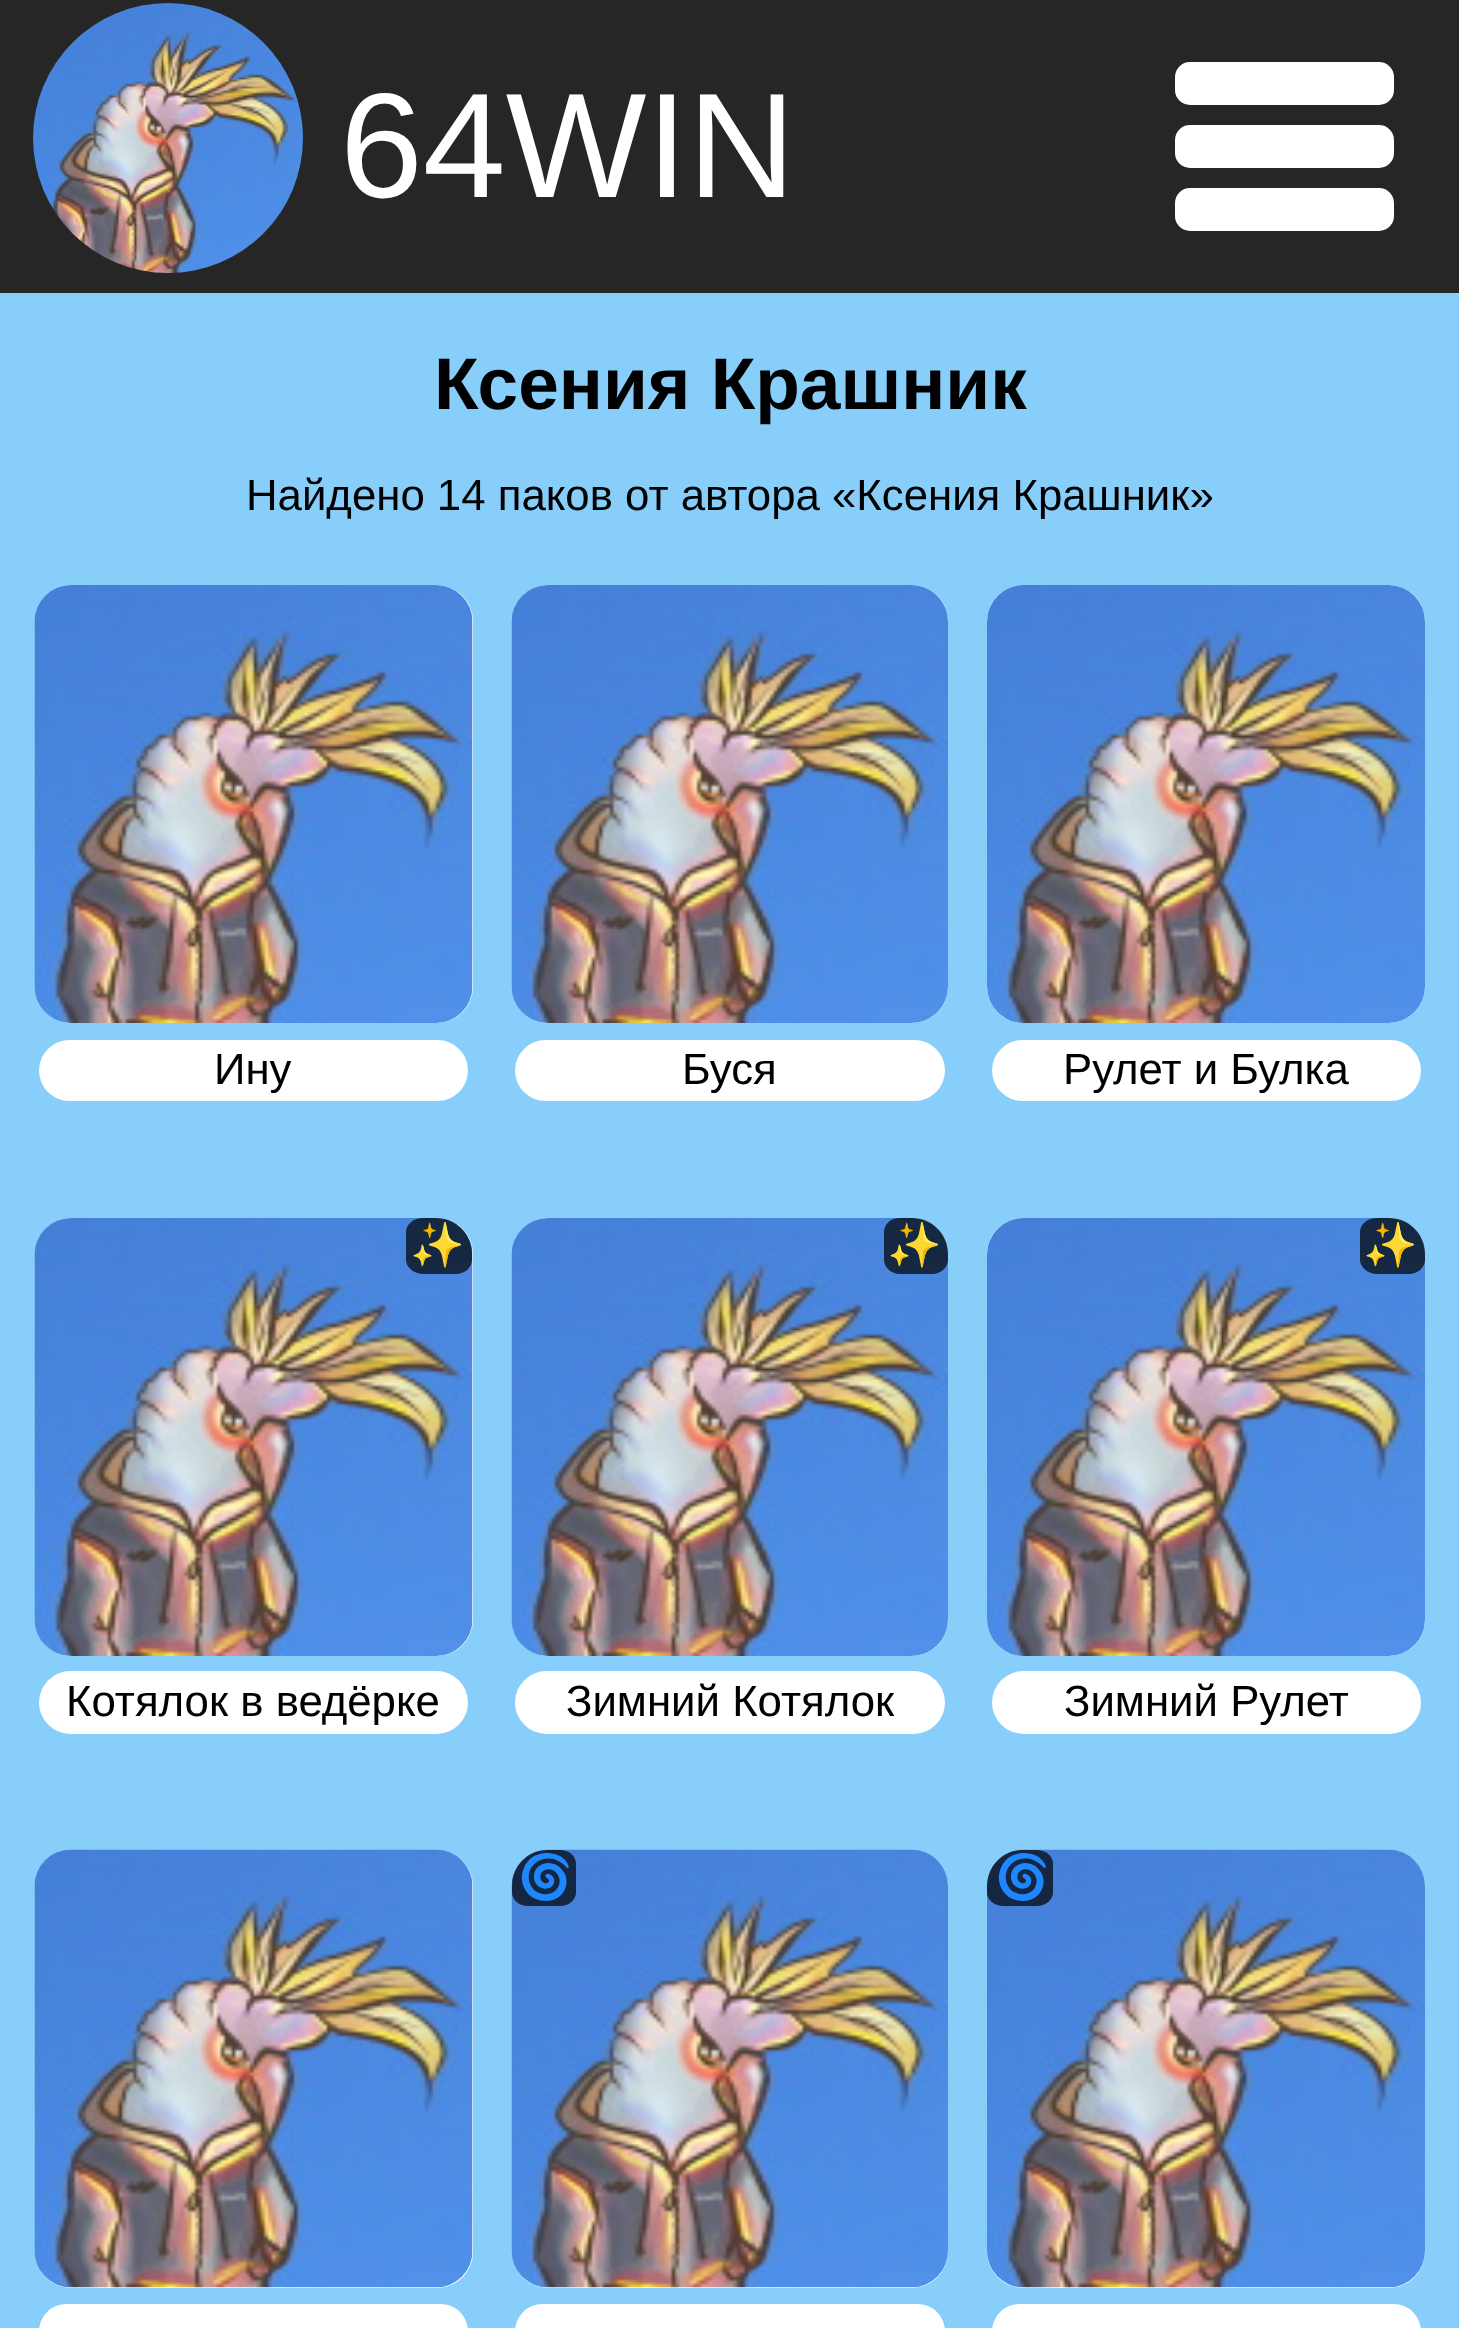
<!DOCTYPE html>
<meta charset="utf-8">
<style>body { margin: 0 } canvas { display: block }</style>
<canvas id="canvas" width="1459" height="2328"></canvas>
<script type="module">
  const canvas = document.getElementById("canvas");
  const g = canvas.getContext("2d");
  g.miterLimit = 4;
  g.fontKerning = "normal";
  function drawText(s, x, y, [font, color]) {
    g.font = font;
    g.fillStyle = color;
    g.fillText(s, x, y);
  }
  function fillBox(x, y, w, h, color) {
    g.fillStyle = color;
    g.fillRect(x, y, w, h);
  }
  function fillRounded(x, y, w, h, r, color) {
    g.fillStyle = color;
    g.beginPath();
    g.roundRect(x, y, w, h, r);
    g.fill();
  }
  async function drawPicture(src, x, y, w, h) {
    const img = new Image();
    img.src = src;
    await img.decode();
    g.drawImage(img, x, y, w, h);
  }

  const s1 = ["149px Liberation Sans", "#FFFFFF"];
  const s2 = ["bold 73px Liberation Sans", "#000000"];
  const s3 = ["43.75px Liberation Sans", "#000000"];
  const s4 = ["43.75px Noto Color Emoji", "#FFFFFF"];

  fillBox(0, 0, 1459, 2328, "#87CEFA");
  fillBox(0, 0, 1459, 293, "#262626");
  await drawPicture("pic1.png", 33, 3, 270, 270);
  drawText("64WIN", 340, 197, s1);
  fillRounded(1175, 125, 219, 43, 15, "#FFFFFF");
  fillRounded(1175, 62, 219, 43, 15, "#FFFFFF");
  fillRounded(1175, 188, 219, 43, 15, "#FFFFFF");
  drawText("Ксения Крашник", 434, 409, s2);
  drawText("Найдено 14 паков от автора «Ксения Крашник»", 246, 510, s3);
  fillRounded(35, 585, 438, 438, 36, "#FFFFFF");
  await drawPicture("pic2.png", 34, 585, 439, 438);
  fillRounded(39, 1040, 429, 61, 30.5, "#FFFFFF");
  drawText("Ину", 214, 1084, s3);
  fillRounded(512, 585, 436, 438, 36, "#FFFFFF");
  await drawPicture("pic3.png", 511, 585, 437, 438);
  fillRounded(515, 1040, 430, 61, 30.5, "#FFFFFF");
  drawText("Буся", 682, 1084, s3);
  fillRounded(987, 585, 438, 438, 36, "#FFFFFF");
  await drawPicture("pic4.png", 987, 585, 438, 438);
  fillRounded(992, 1040, 429, 61, 30.5, "#FFFFFF");
  drawText("Рулет и Булка", 1063, 1084, s3);
  fillRounded(35, 1218, 438, 438, 36, "#FFFFFF");
  await drawPicture("pic5.png", 34, 1218, 439, 438);
  g.fillStyle = "rgba(0, 0, 0, 0.7)";
  g.beginPath();
  g.moveTo(423, 1218);
  g.lineTo(436, 1218);
  g.bezierCurveTo(456, 1218, 472, 1234, 472, 1254);
  g.lineTo(472, 1260);
  g.bezierCurveTo(472, 1267, 465, 1274, 456, 1274);
  g.lineTo(423, 1274);
  g.bezierCurveTo(414, 1274, 406, 1267, 406, 1260);
  g.lineTo(406, 1232);
  g.bezierCurveTo(406, 1224, 414, 1218, 423, 1218);
  g.closePath();
  g.fill();
  drawText("✨", 410, 1260, s4);
  fillRounded(39, 1671, 429, 63, 31.5, "#FFFFFF");
  drawText("Котялок в ведёрке", 66, 1716, s3);
  fillRounded(512, 1218, 436, 438, 36, "#FFFFFF");
  await drawPicture("pic6.png", 511, 1218, 437, 438);
  g.fillStyle = "rgba(0, 0, 0, 0.7)";
  g.beginPath();
  g.moveTo(900, 1218);
  g.lineTo(912, 1218);
  g.bezierCurveTo(932, 1218, 948, 1234, 948, 1254);
  g.lineTo(948, 1260);
  g.bezierCurveTo(948, 1267, 941, 1274, 932, 1274);
  g.lineTo(900, 1274);
  g.bezierCurveTo(891, 1274, 884, 1267, 884, 1260);
  g.lineTo(884, 1232);
  g.bezierCurveTo(884, 1224, 891, 1218, 900, 1218);
  g.closePath();
  g.fill();
  drawText("✨", 887, 1260, s4);
  fillRounded(515, 1671, 430, 63, 31.5, "#FFFFFF");
  drawText("Зимний Котялок", 566, 1716, s3);
  fillRounded(987, 1218, 438, 438, 36, "#FFFFFF");
  await drawPicture("pic7.png", 987, 1218, 438, 438);
  g.fillStyle = "rgba(0, 0, 0, 0.7)";
  g.beginPath();
  g.moveTo(1377, 1218);
  g.lineTo(1389, 1218);
  g.bezierCurveTo(1409, 1218, 1425, 1234, 1425, 1254);
  g.lineTo(1425, 1260);
  g.bezierCurveTo(1425, 1267, 1418, 1274, 1409, 1274);
  g.lineTo(1377, 1274);
  g.bezierCurveTo(1368, 1274, 1360, 1267, 1360, 1260);
  g.lineTo(1360, 1232);
  g.bezierCurveTo(1360, 1224, 1368, 1218, 1377, 1218);
  g.closePath();
  g.fill();
  drawText("✨", 1363, 1260, s4);
  fillRounded(992, 1671, 429, 63, 31.5, "#FFFFFF");
  drawText("Зимний Рулет", 1064, 1716, s3);
  fillRounded(35, 1850, 438, 438, 36, "#FFFFFF");
  await drawPicture("pic8.png", 34, 1849, 439, 439);
  fillRounded(39, 2304, 429, 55, 31, "#FFFFFF");
  fillRounded(512, 1850, 436, 438, 36, "#FFFFFF");
  await drawPicture("pic9.png", 511, 1849, 437, 439);
  g.fillStyle = "rgba(0, 0, 0, 0.7)";
  g.beginPath();
  g.moveTo(548, 1850);
  g.lineTo(560, 1850);
  g.bezierCurveTo(569, 1850, 576, 1856, 576, 1864);
  g.lineTo(576, 1892);
  g.bezierCurveTo(576, 1900, 569, 1906, 560, 1906);
  g.lineTo(528, 1906);
  g.bezierCurveTo(519, 1906, 512, 1900, 512, 1892);
  g.lineTo(512, 1886);
  g.bezierCurveTo(512, 1866, 528, 1850, 548, 1850);
  g.closePath();
  g.fill();
  drawText("🌀", 518, 1892, s4);
  fillRounded(515, 2304, 430, 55, 31, "#FFFFFF");
  fillRounded(987, 1850, 438, 438, 36, "#FFFFFF");
  await drawPicture("pic10.png", 987, 1849, 438, 439);
  g.fillStyle = "rgba(0, 0, 0, 0.7)";
  g.beginPath();
  g.moveTo(1023, 1850);
  g.lineTo(1036, 1850);
  g.bezierCurveTo(1046, 1850, 1053, 1856, 1053, 1864);
  g.lineTo(1053, 1892);
  g.bezierCurveTo(1053, 1900, 1046, 1906, 1036, 1906);
  g.lineTo(1004, 1906);
  g.bezierCurveTo(994, 1906, 987, 1900, 987, 1892);
  g.lineTo(987, 1886);
  g.bezierCurveTo(987, 1866, 1003, 1850, 1023, 1850);
  g.closePath();
  g.fill();
  drawText("🌀", 995, 1892, s4);
  fillRounded(992, 2304, 429, 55, 31, "#FFFFFF");
</script>
